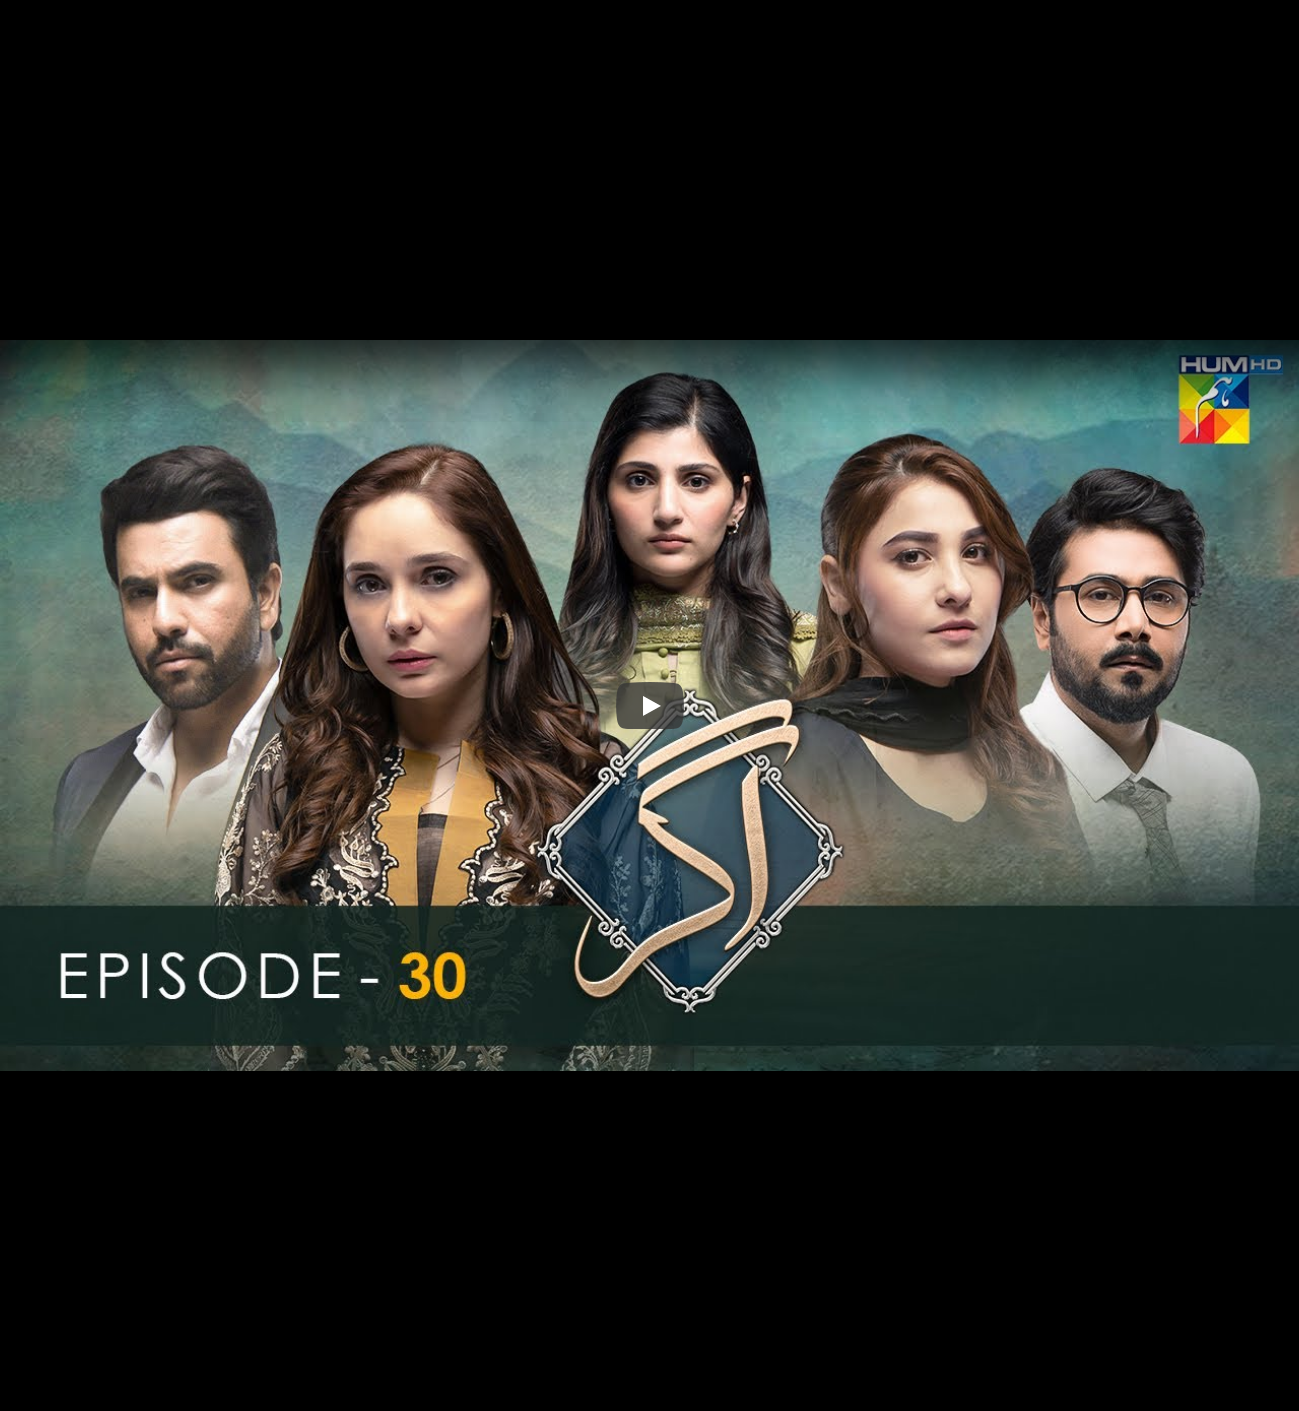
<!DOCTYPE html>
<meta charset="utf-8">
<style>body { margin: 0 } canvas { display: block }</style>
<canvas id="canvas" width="1299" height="1411"></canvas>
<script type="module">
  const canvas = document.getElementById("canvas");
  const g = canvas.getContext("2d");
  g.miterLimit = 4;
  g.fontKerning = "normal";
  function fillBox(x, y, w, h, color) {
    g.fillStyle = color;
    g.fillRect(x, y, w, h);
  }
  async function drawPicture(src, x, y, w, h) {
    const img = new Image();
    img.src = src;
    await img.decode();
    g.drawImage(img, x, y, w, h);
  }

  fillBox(0, 0, 1299, 1411, "#000000");
  await drawPicture("pic1.png", 0, 340, 1299, 731);
  await drawPicture("pic2.png", 0, 340, 1299, 82);
  await drawPicture("pic3.png", 616, 682, 68, 47);
</script>
